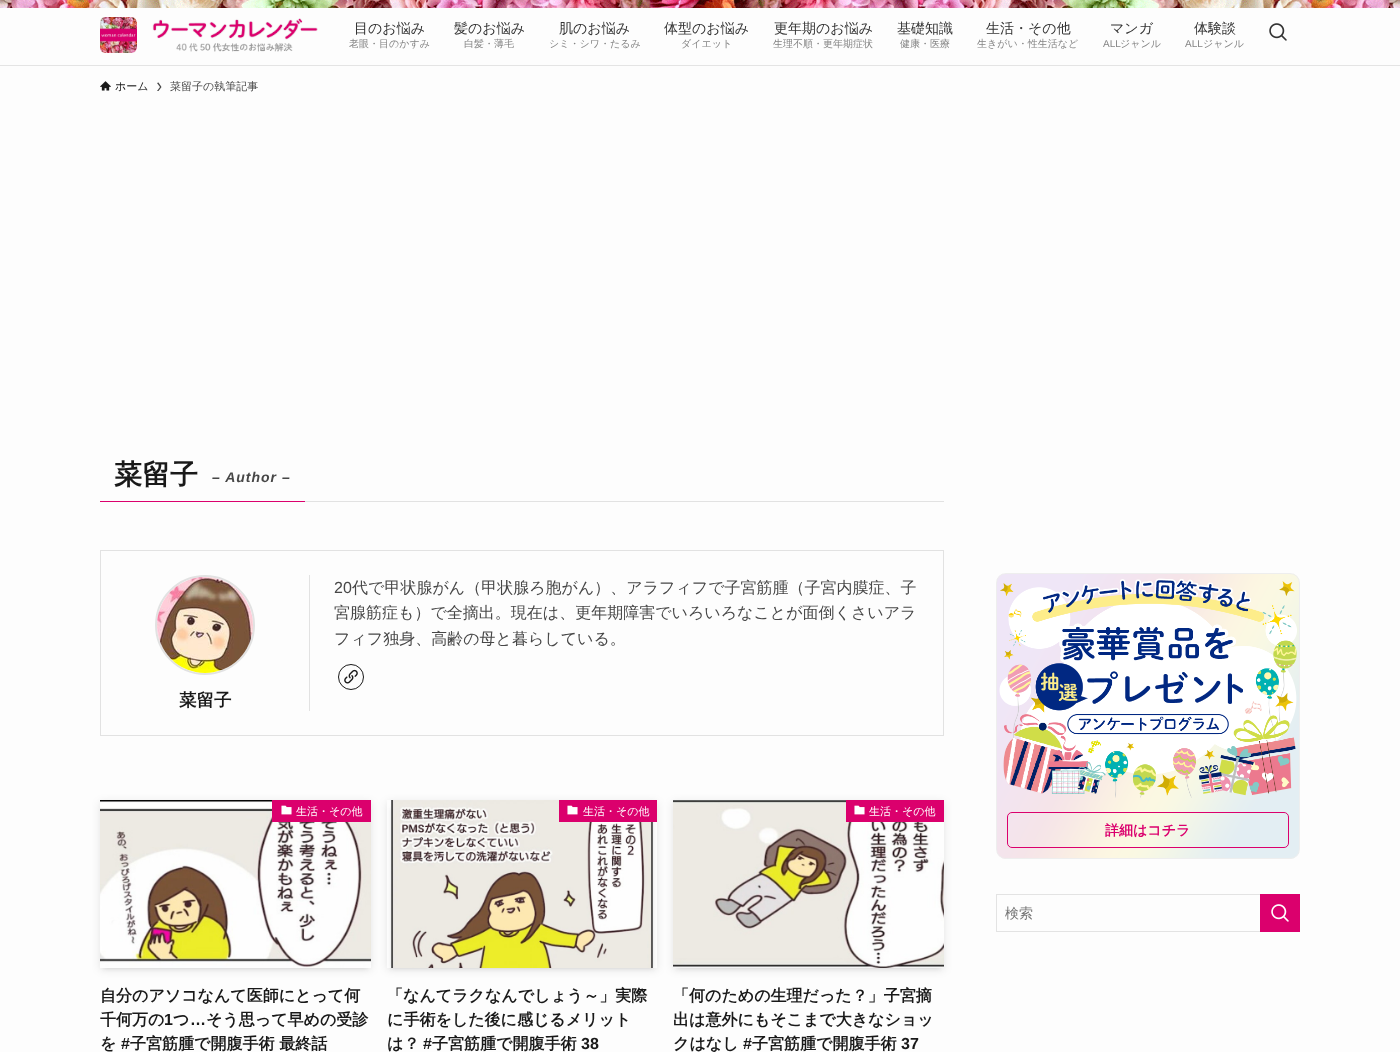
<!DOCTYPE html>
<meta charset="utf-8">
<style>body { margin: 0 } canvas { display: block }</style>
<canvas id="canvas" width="1400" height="1052"></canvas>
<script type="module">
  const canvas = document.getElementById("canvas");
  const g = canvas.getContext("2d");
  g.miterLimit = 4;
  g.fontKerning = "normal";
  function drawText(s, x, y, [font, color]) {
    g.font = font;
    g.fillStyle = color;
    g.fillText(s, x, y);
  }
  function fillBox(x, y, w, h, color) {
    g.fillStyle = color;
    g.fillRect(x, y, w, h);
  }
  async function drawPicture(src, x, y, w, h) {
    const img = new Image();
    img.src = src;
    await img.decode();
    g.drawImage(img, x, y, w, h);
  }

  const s1 = ["500 14px WenQuanYi Zen Hei", "#333333"];
  const s2 = ["500 10px WenQuanYi Zen Hei", "#848484"];
  const s3 = ["10px Liberation Sans", "#848484"];
  const s4 = ["500 11px WenQuanYi Zen Hei", "#191919"];
  const s5 = ["500 11px WenQuanYi Zen Hei", "#474747"];
  const s6 = ["bold 28px WenQuanYi Zen Hei", "#191919"];
  const s7 = ["italic bold 14px Liberation Sans", "#474747"];
  const s8 = ["16px Liberation Sans", "#474747"];
  const s9 = ["500 16px WenQuanYi Zen Hei", "#474747"];
  const s10 = ["bold 17.5px WenQuanYi Zen Hei", "#191919"];
  const s11 = ["500 11px WenQuanYi Zen Hei", "#FFFFFF"];
  const s12 = ["bold 16px WenQuanYi Zen Hei", "#191919"];
  const s13 = ["bold 16px Liberation Sans", "#191919"];
  const s14 = ["bold 14px WenQuanYi Zen Hei", "#DB006D"];
  const s15 = ["500 14px WenQuanYi Zen Hei", "#757575"];

  fillBox(0, 0, 1400, 1052, "#FDFDFD");
  fillBox(0, 65, 1400, 1, "#E4E4E4");
  await drawPicture("pic1.png", 0, 0, 1400, 8);
  await drawPicture("pic2.png", 100, 17, 218, 36);
  drawText("目のお悩み", 354, 33, s1);
  drawText("老眼・目のかすみ", 349, 47, s2);
  drawText("髪のお悩み", 454, 33, s1);
  drawText("白髪・薄毛", 464, 47, s2);
  drawText("肌のお悩み", 559, 33, s1);
  drawText("シミ・シワ・たるみ", 549, 47, s2);
  drawText("体型のお悩み", 664, 33, s1);
  drawText("ダイエット", 681, 47, s2);
  drawText("更年期のお悩み", 774, 33, s1);
  drawText("生理不順・更年期症状", 773, 47, s2);
  drawText("基礎知識", 897, 33, s1);
  drawText("健康・医療", 900, 47, s2);
  drawText("生活・その他", 986, 33, s1);
  drawText("生きがい・性生活など", 977, 47, s2);
  drawText("マンガ", 1110, 33, s1);
  drawText("ALL", 1103, 47, s3);
  drawText("ジャンル", 1120, 47, s2);
  drawText("体験談", 1194, 33, s1);
  drawText("ALL", 1185, 47, s3);
  drawText("ジャンル", 1203, 47, s2);
  await drawPicture("pic3.png", 1269, 23, 18, 18);
  await drawPicture("pic4.png", 100, 81, 11, 10);
  drawText("ホーム", 115, 90, s4);
  g.fillStyle = "#474747";
  g.beginPath();
  g.moveTo(158.5, 82.5);
  g.lineTo(157, 83);
  g.lineTo(160, 87);
  g.lineTo(157, 91);
  g.lineTo(158.5, 91);
  g.lineTo(161.5, 87);
  g.closePath();
  g.fill();
  drawText("菜留子の執筆記事", 170, 90, s5);
  fillBox(305, 501, 639, 1, "#E2E2E2");
  fillBox(100, 501, 205, 1, "#DB006D");
  drawText("菜留子", 114, 484, s6);
  g.letterSpacing = "1px";
  drawText("– Author –", 212, 482, s7);
  g.strokeStyle = "#E2E2E2";
  g.strokeRect(100.5, 550.5, 843, 185);
  fillBox(309, 575, 1, 136, "#E2E2E2");
  g.letterSpacing = "0px";
  drawText("20", 334, 593, s8);
  drawText("代で甲状腺がん（甲状腺ろ胞がん）、アラフィフで子宮筋腫（子宮内膜症、子", 352, 593, s9);
  drawText("宮腺筋症も）で全摘出。現在は、更年期障害でいろいろなことが面倒くさいアラ", 334, 618, s9);
  drawText("フィフ独身、高齢の母と暮らしている。", 334, 644, s9);
  g.beginPath();
  g.arc(351, 677, 12.5, 0, Math.PI * 2);
  g.strokeStyle = "#191919";
  g.stroke();
  await drawPicture("pic5.png", 344, 669, 14, 15);
  g.beginPath();
  g.arc(205, 625, 49, 0, Math.PI * 2);
  g.strokeStyle = "#E2E2E2";
  g.lineWidth = 2;
  g.stroke();
  await drawPicture("pic6.png", 157, 577, 96, 96);
  drawText("菜留子", 179, 706, s10);
  g.fillStyle = "rgba(0, 0, 0, 0.1)";
  g.filter = "blur(2px)";
  g.beginPath();
  g.rect(104, 808, 263, 160);
  g.fill();
  g.filter = "none";
  g.filter = "blur(4px)";
  g.beginPath();
  g.rect(100, 802, 271, 168);
  g.fill();
  g.filter = "none";
  await drawPicture("pic7.png", 100, 800, 271, 168);
  fillBox(272, 800, 99, 22, "#DB006D");
  await drawPicture("pic8.png", 281, 805, 11, 10);
  drawText("生活・その他", 296, 815, s11);
  drawText("自分のアソコなんて医師にとって何", 100, 1001, s12);
  drawText("千何万の", 100, 1025, s12);
  drawText("1", 164, 1025, s13);
  drawText("つ", 173, 1025, s12);
  drawText("…", 190, 1025, s13);
  drawText("そう思って早めの受診", 206, 1025, s12);
  drawText("を", 100, 1049, s12);
  drawText("#", 121, 1049, s13);
  drawText("子宮筋腫で開腹手術 最終話", 130, 1049, s12);
  g.fillStyle = "rgba(0, 0, 0, 0.1)";
  g.filter = "blur(2px)";
  g.beginPath();
  g.rect(391, 808, 262, 160);
  g.fill();
  g.filter = "none";
  g.save();
  g.beginPath();
  g.moveTo(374, 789);
  g.lineTo(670, 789);
  g.lineTo(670, 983);
  g.lineTo(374, 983);
  g.closePath();
  g.moveTo(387, 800);
  g.lineTo(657, 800);
  g.lineTo(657, 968);
  g.lineTo(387, 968);
  g.closePath();
  g.clip("evenodd");
  g.filter = "blur(4px)";
  g.beginPath();
  g.rect(387, 802, 270, 168);
  g.fill();
  g.filter = "none";
  g.restore();
  await drawPicture("pic9.png", 391, 800, 262, 168);
  fillBox(559, 800, 98, 22, "#DB006D");
  await drawPicture("pic8.png", 567, 805, 11, 10);
  drawText("生活・その他", 583, 815, s11);
  drawText("「なんてラクなんでしょう～」実際", 387, 1001, s12);
  drawText("に手術をした後に感じるメリット", 387, 1025, s12);
  drawText("は？", 387, 1049, s12);
  drawText("#", 423, 1049, s13);
  drawText("子宮筋腫で開腹手術", 432, 1049, s12);
  drawText("38", 581, 1049, s13);
  g.fillStyle = "rgba(0, 0, 0, 0.1)";
  g.filter = "blur(2px)";
  g.beginPath();
  g.rect(677, 808, 263, 160);
  g.fill();
  g.filter = "none";
  g.filter = "blur(4px)";
  g.beginPath();
  g.rect(673, 802, 271, 168);
  g.fill();
  g.filter = "none";
  await drawPicture("pic10.png", 673, 800, 271, 168);
  fillBox(846, 800, 98, 22, "#DB006D");
  await drawPicture("pic8.png", 854, 805, 11, 10);
  drawText("生活・その他", 869, 815, s11);
  drawText("「何のための生理だった？」子宮摘", 673, 1001, s12);
  drawText("出は意外にもそこまで大きなショッ", 673, 1025, s12);
  drawText("クはなし", 673, 1049, s12);
  drawText("#", 743, 1049, s13);
  drawText("子宮筋腫で開腹手術", 752, 1049, s12);
  drawText("37", 901, 1049, s13);
  await drawPicture("pic11.png", 997, 574, 302, 285);
  g.beginPath();
  g.roundRect(996.5, 573.5, 303, 285, 9.5);
  g.strokeStyle = "#EEEEEE";
  g.lineWidth = 1;
  g.stroke();
  await drawPicture("pic12.png", 999, 578, 298, 220);
  g.beginPath();
  g.roundRect(1007.5, 812.5, 281, 35, 4.5);
  g.strokeStyle = "#DB006D";
  g.stroke();
  drawText("詳細はコチラ", 1105, 835, s14);
  g.strokeStyle = "#E3E3E3";
  g.strokeRect(996.5, 894.5, 303, 37);
  drawText("検索", 1005, 918, s15);
  fillBox(1260, 894, 40, 38, "#DB006D");
  await drawPicture("pic13.png", 1271, 904, 18, 18);
</script>
